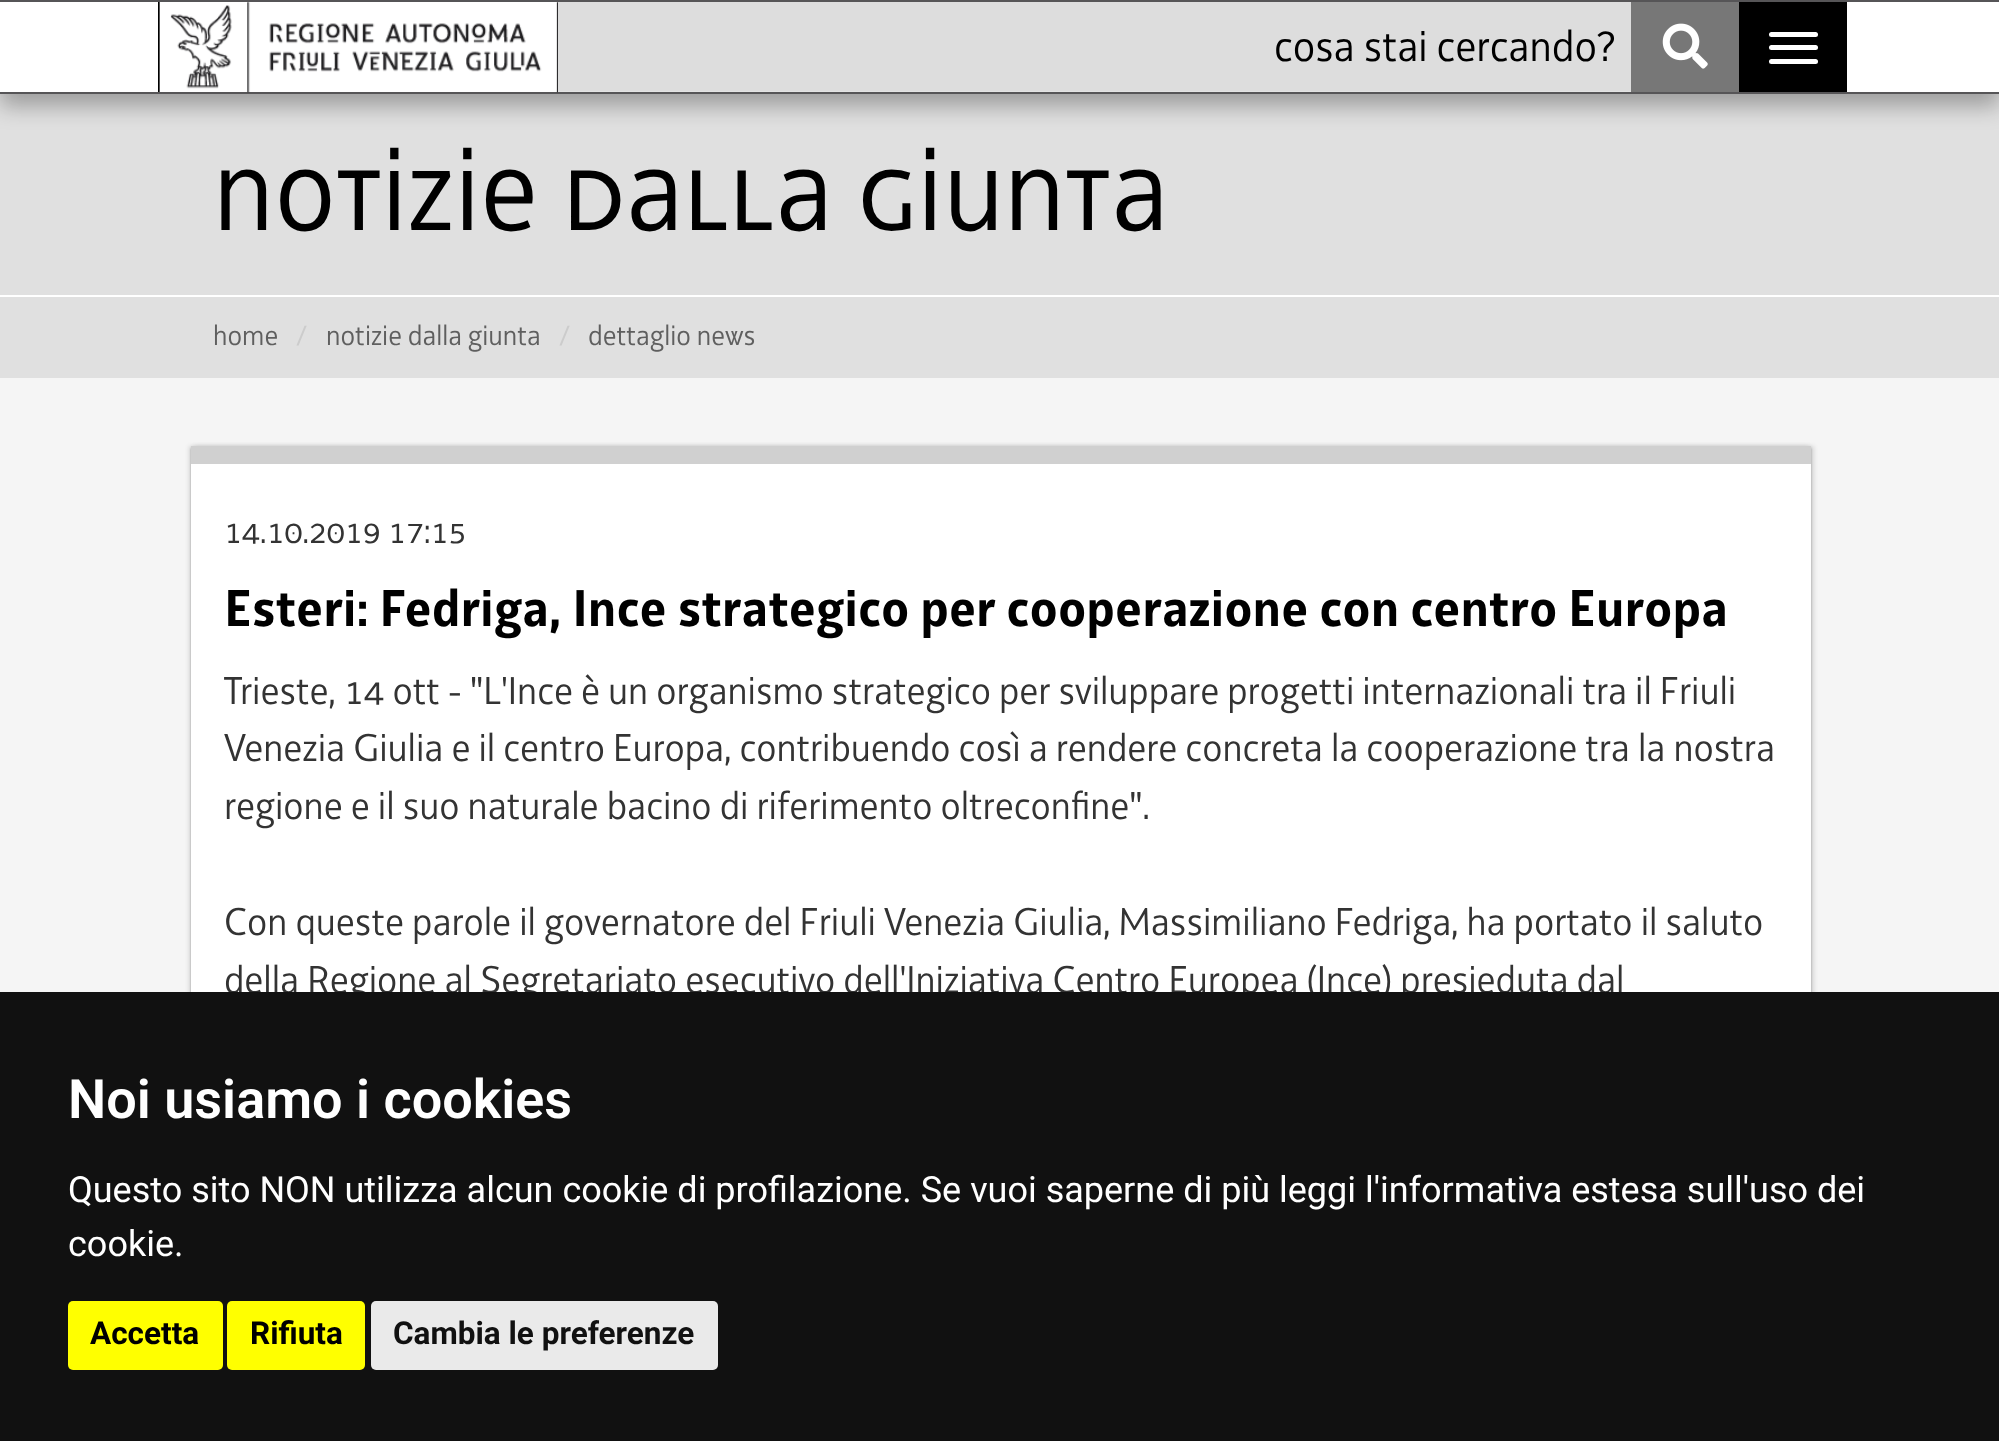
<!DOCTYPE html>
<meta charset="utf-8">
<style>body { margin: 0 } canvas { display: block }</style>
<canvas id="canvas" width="1999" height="1441"></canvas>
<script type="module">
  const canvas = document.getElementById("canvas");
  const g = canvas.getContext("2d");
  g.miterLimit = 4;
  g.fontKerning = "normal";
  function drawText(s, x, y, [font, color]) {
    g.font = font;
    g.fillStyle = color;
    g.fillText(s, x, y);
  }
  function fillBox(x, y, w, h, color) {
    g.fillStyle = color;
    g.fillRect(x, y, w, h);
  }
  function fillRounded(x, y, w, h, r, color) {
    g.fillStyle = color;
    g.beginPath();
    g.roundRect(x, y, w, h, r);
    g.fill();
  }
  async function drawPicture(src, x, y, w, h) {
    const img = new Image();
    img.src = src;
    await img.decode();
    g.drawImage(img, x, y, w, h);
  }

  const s1 = ["45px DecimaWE", "#000000"];
  const s2 = ["123.75px 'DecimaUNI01'", "#000000"];
  const s3 = ["29.25px DecimaWE", "#5F5F5F"];
  const s4 = ["29.25px DecimaWE", "#CCCCCC"];
  const s5 = ["36px DecimaWE", "#333333"];
  const s6 = ["bold 54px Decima", "#000000"];
  const s7 = ["40.5px DecimaWE", "#333333"];
  const s8 = ["600 54px Roboto", "#FFFFFF"];
  const s9 = ["36px Roboto", "#FFFFFF"];
  const s10 = ["bold 31.5px Roboto", "#000000"];
  const s11 = ["bold 31.5px Roboto", "#111111"];

  fillBox(0, 0, 1999, 1441, "#F5F5F5");
  fillBox(0, 94, 1999, 201, "#E0E0E0");
  g.fillStyle = "rgba(0, 0, 0, 0.3)";
  g.filter = "blur(11px)";
  g.beginPath();
  g.rect(0, 11, 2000, 95);
  g.fill();
  g.filter = "none";
  fillBox(0, 2, 1999, 90, "#FFFFFF");
  fillBox(0, 0, 1999, 2, "#565557");
  fillBox(0, 92, 1999, 2, "#565557");
  fillBox(158, 2, 2, 90, "#000000");
  await drawPicture("pic1.png", 159, 2, 1472, 90);
  fillBox(160, 2, 398, 90, "#FFFFFF");
  await drawPicture("pic2.png", 170, 2, 388, 91);
  drawText("cosa stai cercando?", 1274, 61, s1);
  fillBox(1631, 2, 108, 90, "#777777");
  await drawPicture("pic3.png", 1662, 23, 46, 46);
  fillBox(1739, 2, 108, 90, "#000000");
  fillRounded(1769, 32, 49, 5, 2.5, "#FFFFFF");
  fillRounded(1769, 45, 49, 5, 2.5, "#FFFFFF");
  fillRounded(1769, 59, 49, 5, 2.5, "#FFFFFF");
  drawText("Notizie dalla Giunta", 213, 230, s2);
  fillBox(0, 297, 1999, 81, "#E0E0E0");
  fillBox(0, 295, 1999, 2, "#FFFFFF");
  drawText("home", 213, 345, s3);
  drawText("/", 295, 345, s4);
  drawText("notizie dalla giunta", 326, 345, s3);
  drawText("/", 558, 345, s4);
  drawText("dettaglio news", 588, 345, s3);
  g.fillStyle = "rgba(0, 0, 0, 0.24)";
  g.filter = "blur(1px)";
  g.beginPath();
  g.rect(191, 448, 1620, 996);
  g.fill();
  g.filter = "none";
  g.fillStyle = "rgba(0, 0, 0, 0.12)";
  g.filter = "blur(2px)";
  g.beginPath();
  g.rect(194, 446, 1620, 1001);
  g.fill();
  g.filter = "none";
  g.filter = "blur(2px)";
  g.beginPath();
  g.rect(189, 446, 1620, 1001);
  g.fill();
  g.filter = "none";
  fillBox(191, 464, 1620, 528, "#FFFFFF");
  fillBox(191, 446, 1620, 18, "#D0D0D0");
  drawText("14.10.2019 17:15", 224, 543, s5);
  drawText("Esteri: Fedriga, Ince strategico per cooperazione con centro Europa", 224, 626, s6);
  drawText("Trieste, 14 ott - \"L'Ince è un organismo strategico per sviluppare progetti internazionali tra il Friuli", 224, 704, s7);
  drawText("Venezia Giulia e il centro Europa, contribuendo così a rendere concreta la cooperazione tra la nostra", 224, 761, s7);
  drawText("regione e il suo naturale bacino di riferimento oltreconfine\".", 224, 819, s7);
  drawText("Con queste parole il governatore del Friuli Venezia Giulia, Massimiliano Fedriga, ha portato il saluto", 224, 935, s7);
  drawText("della Regione al Segretariato esecutivo dell'Iniziativa Centro Europea (Ince) presieduta dal", 224, 993, s7);
  fillBox(0, 992, 1999, 449, "#111111");
  drawText("Noi usiamo i cookies", 68, 1118, s8);
  drawText("Questo sito NON utilizza alcun cookie di profilazione. Se vuoi saperne di più leggi l'informativa estesa sull'uso dei", 68, 1202, s9);
  drawText("cookie.", 68, 1256, s9);
  fillRounded(68, 1301, 155, 69, 5, "#FFFF00");
  drawText("Accetta", 90, 1344, s10);
  fillRounded(227, 1301, 138, 69, 5, "#FFFF00");
  drawText("Rifiuta", 250, 1344, s10);
  fillRounded(371, 1301, 347, 69, 5, "#EAEAEA");
  drawText("Cambia le preferenze", 393, 1344, s11);
</script>
